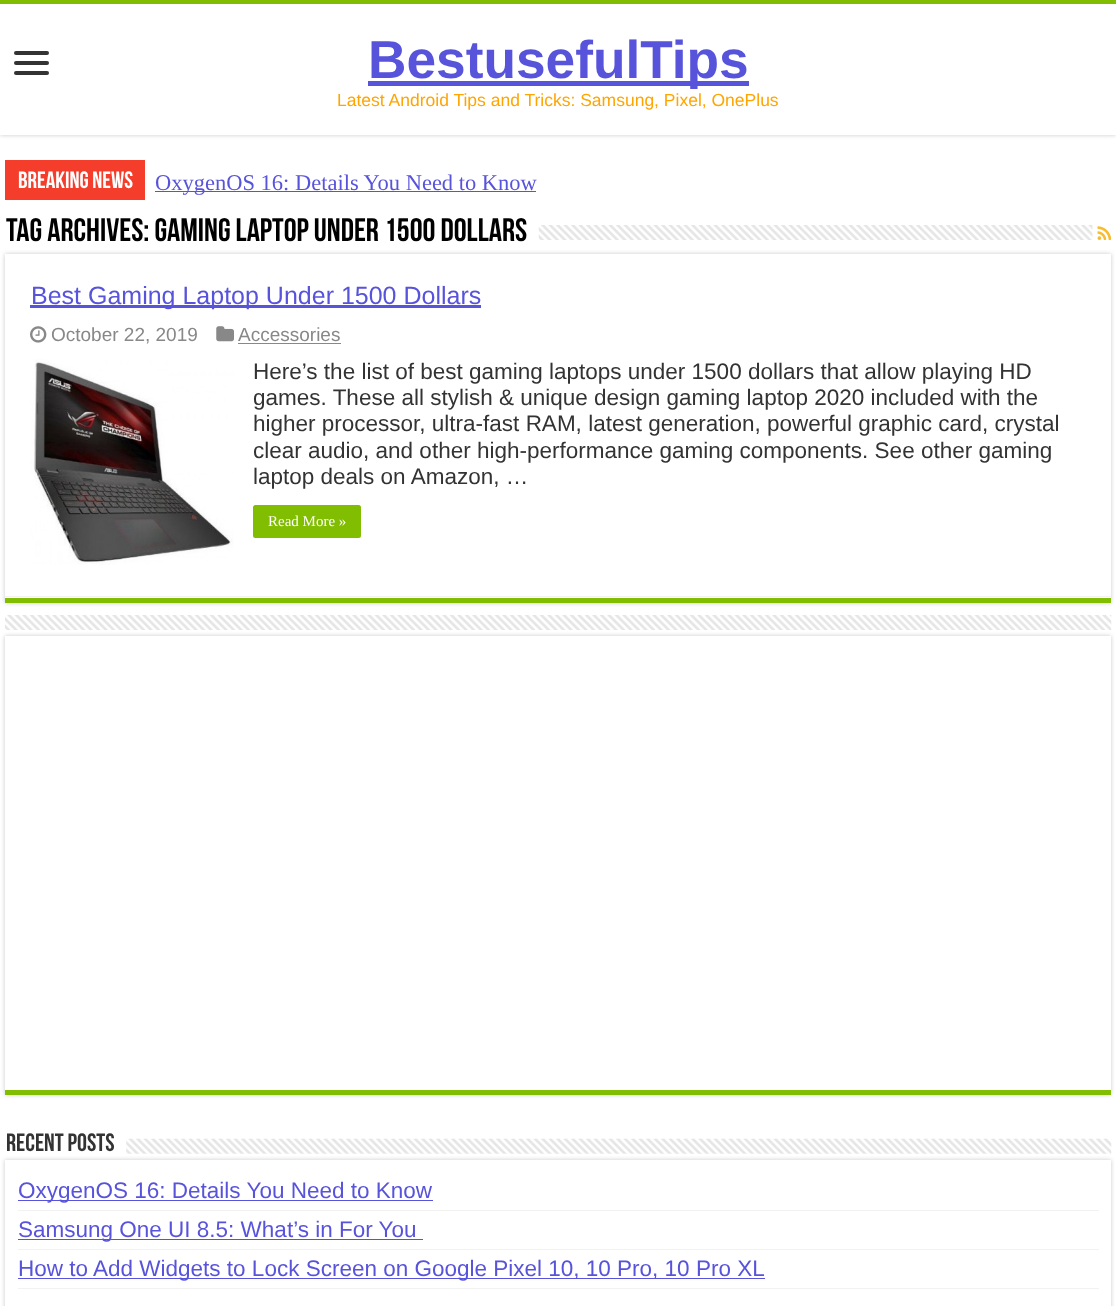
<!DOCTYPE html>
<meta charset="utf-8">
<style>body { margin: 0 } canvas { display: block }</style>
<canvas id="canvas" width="1116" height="1306"></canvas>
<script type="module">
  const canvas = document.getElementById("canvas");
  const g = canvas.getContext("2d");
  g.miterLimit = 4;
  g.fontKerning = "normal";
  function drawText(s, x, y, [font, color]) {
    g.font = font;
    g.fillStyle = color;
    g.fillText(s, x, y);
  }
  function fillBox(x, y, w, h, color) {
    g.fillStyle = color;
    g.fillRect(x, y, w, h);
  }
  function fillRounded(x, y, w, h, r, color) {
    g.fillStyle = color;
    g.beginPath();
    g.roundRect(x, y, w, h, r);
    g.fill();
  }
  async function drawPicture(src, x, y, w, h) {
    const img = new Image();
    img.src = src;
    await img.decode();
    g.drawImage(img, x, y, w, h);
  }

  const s1 = ["bold 53.25px Liberation Sans", "#5853DB"];
  const s2 = ["17.5px Liberation Sans", "#FFA500"];
  const s3 = ["bold 23.5px Bebas Neue", "#FFFFFF"];
  const s4 = ["22.5px Liberation Serif", "#5853DB"];
  const s5 = ["bold 32.5px Bebas Neue", "#000000"];
  const s6 = ["25px Liberation Sans", "#5853DB"];
  const s7 = ["19px Liberation Sans", "#888888"];
  const s8 = ["22.5px Liberation Sans", "#333333"];
  const s9 = ["15px Liberation Serif", "#FFFFFF"];
  const s10 = ["bold 25px Bebas Neue", "#333333"];
  const s11 = ["22.5px Liberation Sans", "#5853DB"];

  fillBox(0, 0, 1116, 1306, "#FFFFFF");
  g.save();
  g.beginPath();
  g.rect(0, 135, 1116, 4);
  g.clip();
  g.fillStyle = "#CACACA";
  g.filter = "blur(2px)";
  g.beginPath();
  g.rect(0, 0, 1116, 135);
  g.fill();
  g.filter = "none";
  g.restore();
  fillBox(0, 0, 1116, 4, "#81BD00");
  fillRounded(14, 51, 35, 4, 2, "#333333");
  fillRounded(14, 61, 35, 4, 2, "#333333");
  fillRounded(14, 71, 35, 4, 2, "#333333");
  fillBox(368, 81, 381, 5, "#5853DB");
  drawText("BestusefulTips", 368, 78, s1);
  drawText("Latest Android Tips and Tricks: Samsung, Pixel, OnePlus", 337, 106, s2);
  fillBox(5, 160, 140, 40, "#F43D2A");
  drawText("Breaking News", 18, 188, s3);
  fillBox(155, 191, 381, 1, "#5853DB");
  drawText("OxygenOS 16: Details You Need to Know", 155, 190, s4);
  drawText("Tag Archives: Gaming laptop under 1500 dollars", 6, 241, s5);
  await drawPicture("pic1.png", 538, 225, 555, 15);
  await drawPicture("pic2.png", 1097, 226, 14, 14);
  g.fillStyle = "#CACACA";
  g.filter = "blur(2px)";
  g.beginPath();
  g.rect(5, 254, 1106, 349);
  g.fill();
  g.filter = "none";
  fillBox(5, 254, 1106, 344, "#FFFFFF");
  fillBox(5, 598, 1106, 5, "#81BD00");
  fillBox(5, 596, 1106, 1, "#F2F2F2");
  fillBox(30, 305, 451, 3, "#5853DB");
  drawText("Best Gaming Laptop Under 1500 Dollars", 31, 304, s6);
  await drawPicture("pic3.png", 30, 326, 17, 17);
  drawText("October 22, 2019", 51, 341, s7);
  await drawPicture("pic4.png", 216, 326, 18, 16);
  drawText("Accessories", 238, 341, s7);
  fillBox(238, 343, 103, 1, "#888888");
  await drawPicture("pic5.png", 30, 359, 204, 206);
  drawText("Here’s the list of best gaming laptops under 1500 dollars that allow playing HD", 253, 379, s8);
  drawText("games. These all stylish & unique design gaming laptop 2020 included with the", 253, 405, s8);
  drawText("higher processor, ultra-fast RAM, latest generation, powerful graphic card, crystal", 253, 431, s8);
  drawText("clear audio, and other high-performance gaming components. See other gaming", 253, 458, s8);
  drawText("laptop deals on Amazon, …", 253, 484, s8);
  fillRounded(253, 505, 108, 33, 2.5, "#81BD00");
  drawText("Read More »", 268, 526, s9);
  g.fillStyle = "#CACACA";
  g.filter = "blur(2px)";
  g.beginPath();
  g.rect(5, 636, 1106, 459);
  g.fill();
  g.filter = "none";
  await drawPicture("pic6.png", 5, 615, 1107, 15);
  fillBox(5, 636, 1106, 454, "#FFFFFF");
  fillBox(5, 1090, 1106, 5, "#81BD00");
  drawText("Recent Posts", 6, 1151, s10);
  g.save();
  g.beginPath();
  g.moveTo(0, 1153);
  g.lineTo(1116, 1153);
  g.lineTo(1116, 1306);
  g.lineTo(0, 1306);
  g.closePath();
  g.moveTo(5, 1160);
  g.lineTo(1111, 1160);
  g.lineTo(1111, 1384);
  g.lineTo(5, 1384);
  g.closePath();
  g.clip("evenodd");
  g.fillStyle = "#CACACA";
  g.filter = "blur(2px)";
  g.beginPath();
  g.rect(5, 1160, 1106, 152);
  g.fill();
  g.filter = "none";
  g.restore();
  await drawPicture("pic7.png", 126, 1138, 986, 16);
  fillBox(18, 1210, 1081, 1, "#F2F2F2");
  fillBox(18, 1200, 415, 1, "#5853DB");
  drawText("OxygenOS 16: Details You Need to Know", 18, 1198, s11);
  fillBox(18, 1249, 1081, 1, "#F2F2F2");
  fillBox(18, 1239, 405, 1, "#5853DB");
  drawText("Samsung One UI 8.5: What’s in For You", 18, 1237, s11);
  fillBox(18, 1288, 1081, 1, "#F2F2F2");
  fillBox(18, 1278, 747, 1, "#5853DB");
  drawText("How to Add Widgets to Lock Screen on Google Pixel 10, 10 Pro, 10 Pro XL", 18, 1276, s11);
</script>
